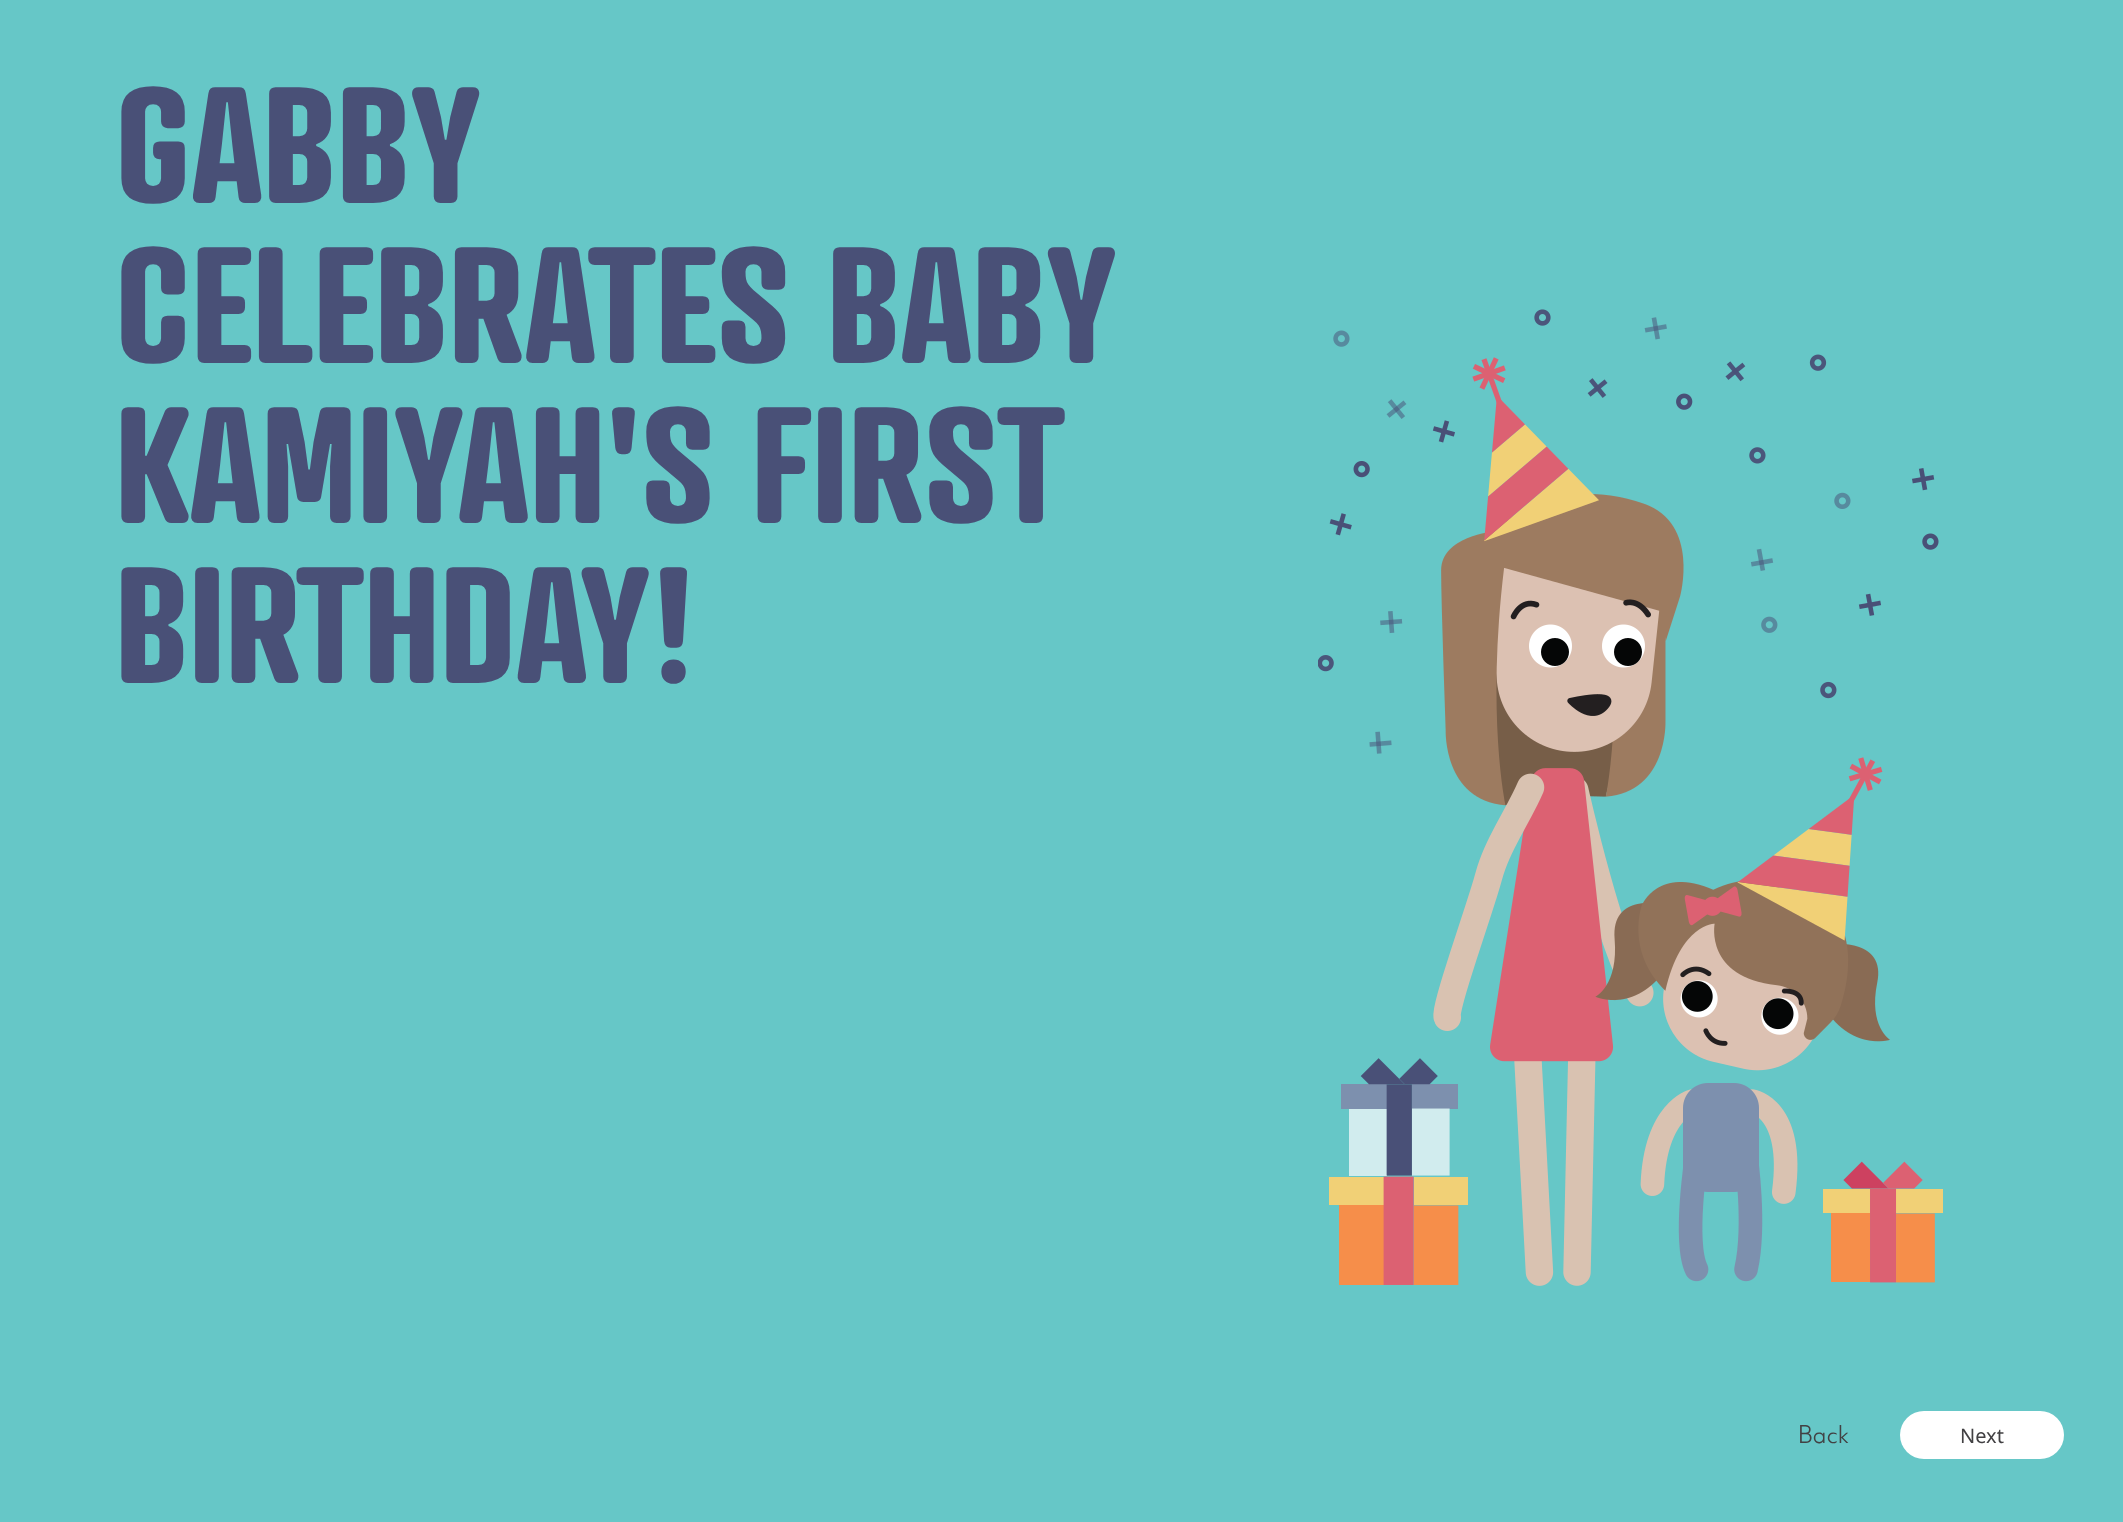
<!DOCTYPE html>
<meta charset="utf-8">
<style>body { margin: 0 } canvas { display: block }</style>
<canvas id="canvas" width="2123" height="1522"></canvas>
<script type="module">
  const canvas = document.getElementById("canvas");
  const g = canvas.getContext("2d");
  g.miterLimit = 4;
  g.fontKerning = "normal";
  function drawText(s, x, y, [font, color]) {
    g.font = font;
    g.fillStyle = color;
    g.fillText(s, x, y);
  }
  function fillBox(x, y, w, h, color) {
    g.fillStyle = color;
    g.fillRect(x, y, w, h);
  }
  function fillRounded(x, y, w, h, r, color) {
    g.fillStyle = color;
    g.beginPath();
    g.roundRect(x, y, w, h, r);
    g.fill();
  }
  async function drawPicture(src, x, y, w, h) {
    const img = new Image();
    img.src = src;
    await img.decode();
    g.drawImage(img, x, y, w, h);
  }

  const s1 = ["bold 160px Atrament", "#495077"];
  const s2 = ["30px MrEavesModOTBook", "#424143"];
  const s3 = ["20px Noto Sans", "#424143"];

  fillBox(0, 0, 2123, 1522, "#66C7C7");
  drawText("GABBY", 115, 203, s1);
  drawText("CELEBRATES BABY", 115, 363, s1);
  drawText("KAMIYAH'S FIRST", 115, 523, s1);
  drawText("BIRTHDAY!", 115, 683, s1);
  await drawPicture("pic1.png", 1318, 309, 625, 977);
  drawText("Back", 1798, 1443, s2);
  fillRounded(1900, 1411, 164, 48, 24, "#FFFFFF");
  drawText("Next", 1960, 1443, s3);
</script>
